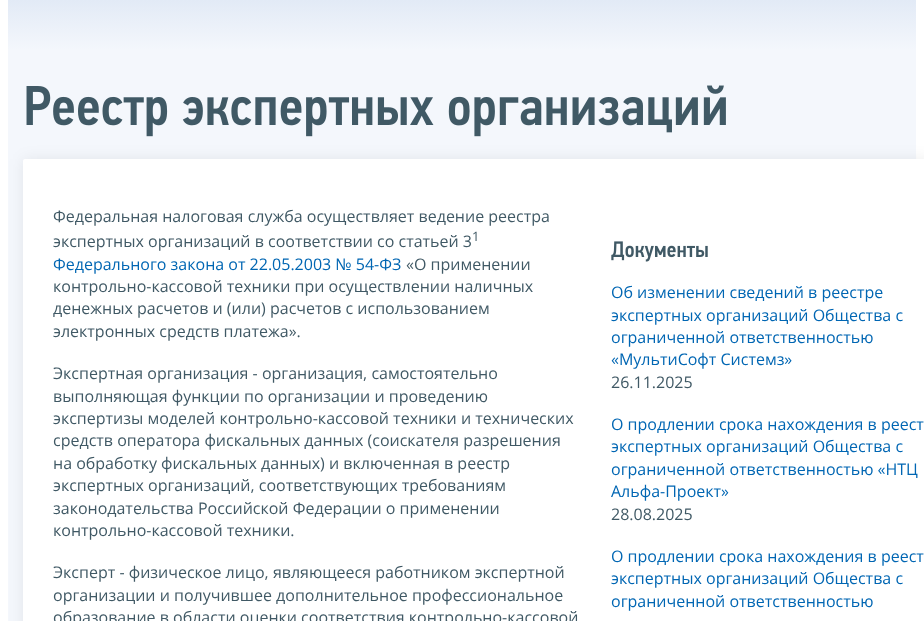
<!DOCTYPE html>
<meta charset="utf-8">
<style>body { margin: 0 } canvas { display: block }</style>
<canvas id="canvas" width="924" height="621"></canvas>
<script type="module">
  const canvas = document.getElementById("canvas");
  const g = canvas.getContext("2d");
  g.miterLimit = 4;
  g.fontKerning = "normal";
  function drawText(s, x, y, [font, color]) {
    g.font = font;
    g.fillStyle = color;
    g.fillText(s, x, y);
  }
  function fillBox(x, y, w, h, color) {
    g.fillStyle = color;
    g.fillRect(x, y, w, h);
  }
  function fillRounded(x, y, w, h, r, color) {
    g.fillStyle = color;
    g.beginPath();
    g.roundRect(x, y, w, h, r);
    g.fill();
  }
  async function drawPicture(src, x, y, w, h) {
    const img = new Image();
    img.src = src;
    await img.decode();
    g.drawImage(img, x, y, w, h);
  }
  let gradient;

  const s1 = ["16px Open Sans", "#405965"];
  const s2 = ["13px Open Sans", "#405965"];
  const s3 = ["16px Open Sans", "#0066B3"];

  fillBox(0, 0, 924, 621, "#FFFFFF");
  fillBox(8, 50, 908, 571, "#F4F7FC");
  gradient = g.createLinearGradient(462, 0, 462, 50);
  gradient.addColorStop(0, "#E2EAF6");
  gradient.addColorStop(1, "#F4F7FC");
  g.fillStyle = gradient;
  g.fillRect(8, 0, 908, 50);
  g.fillStyle = "rgba(0, 0, 0, 0.07)";
  g.filter = "blur(7.5px)";
  g.beginPath();
  g.roundRect(23, 159, 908, 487, 2);
  g.fill();
  g.filter = "none";
  await drawPicture("pic1.png", 26, 85, 700, 52);
  fillRounded(23, 159, 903, 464, 2, "#FFFFFF");
  drawText("Федеральная налоговая служба осуществляет ведение реестра", 53, 222, s1);
  drawText("экспертных организаций в соответствии со статьей 3", 53, 247, s1);
  drawText("1", 472, 241, s2);
  drawText("Федерального закона от 22.05.2003 № 54-ФЗ", 53, 270, s3);
  drawText("«О применении", 406, 270, s1);
  drawText("контрольно-кассовой техники при осуществлении наличных", 53, 292, s1);
  drawText("денежных расчетов и (или) расчетов с использованием", 53, 314, s1);
  drawText("электронных средств платежа».", 53, 337, s1);
  drawText("Экспертная организация - организация, самостоятельно", 53, 379, s1);
  drawText("выполняющая функции по организации и проведению", 53, 402, s1);
  drawText("экспертизы моделей контрольно-кассовой техники и технических", 53, 424, s1);
  drawText("средств оператора фискальных данных (соискателя разрешения", 53, 446, s1);
  drawText("на обработку фискальных данных) и включенная в реестр", 53, 469, s1);
  drawText("экспертных организаций, соответствующих требованиям", 53, 491, s1);
  drawText("законодательства Российской Федерации о применении", 53, 514, s1);
  drawText("контрольно-кассовой техники.", 53, 536, s1);
  drawText("Эксперт - физическое лицо, являющееся работником экспертной", 53, 578, s1);
  drawText("организации и получившее дополнительное профессиональное", 53, 601, s1);
  drawText("образование в области оценки соответствия контрольно-кассовой", 53, 623, s1);
  await drawPicture("pic2.png", 611, 241, 97, 21);
  drawText("Об изменении сведений в реестре", 611, 298, s3);
  drawText("экспертных организаций Общества с", 611, 321, s3);
  drawText("ограниченной ответственностью", 611, 343, s3);
  drawText("«МультиСофт Системз»", 611, 365, s3);
  drawText("26.11.2025", 611, 388, s1);
  drawText("О продлении срока нахождения в реест", 611, 430, s3);
  drawText("экспертных организаций Общества с", 611, 452, s3);
  drawText("ограниченной ответственностью «НТЦ", 611, 475, s3);
  drawText("Альфа-Проект»", 611, 497, s3);
  drawText("28.08.2025", 611, 520, s1);
  drawText("О продлении срока нахождения в реест", 611, 562, s3);
  drawText("экспертных организаций Общества с", 611, 584, s3);
  drawText("ограниченной ответственностью", 611, 607, s3);
</script>
